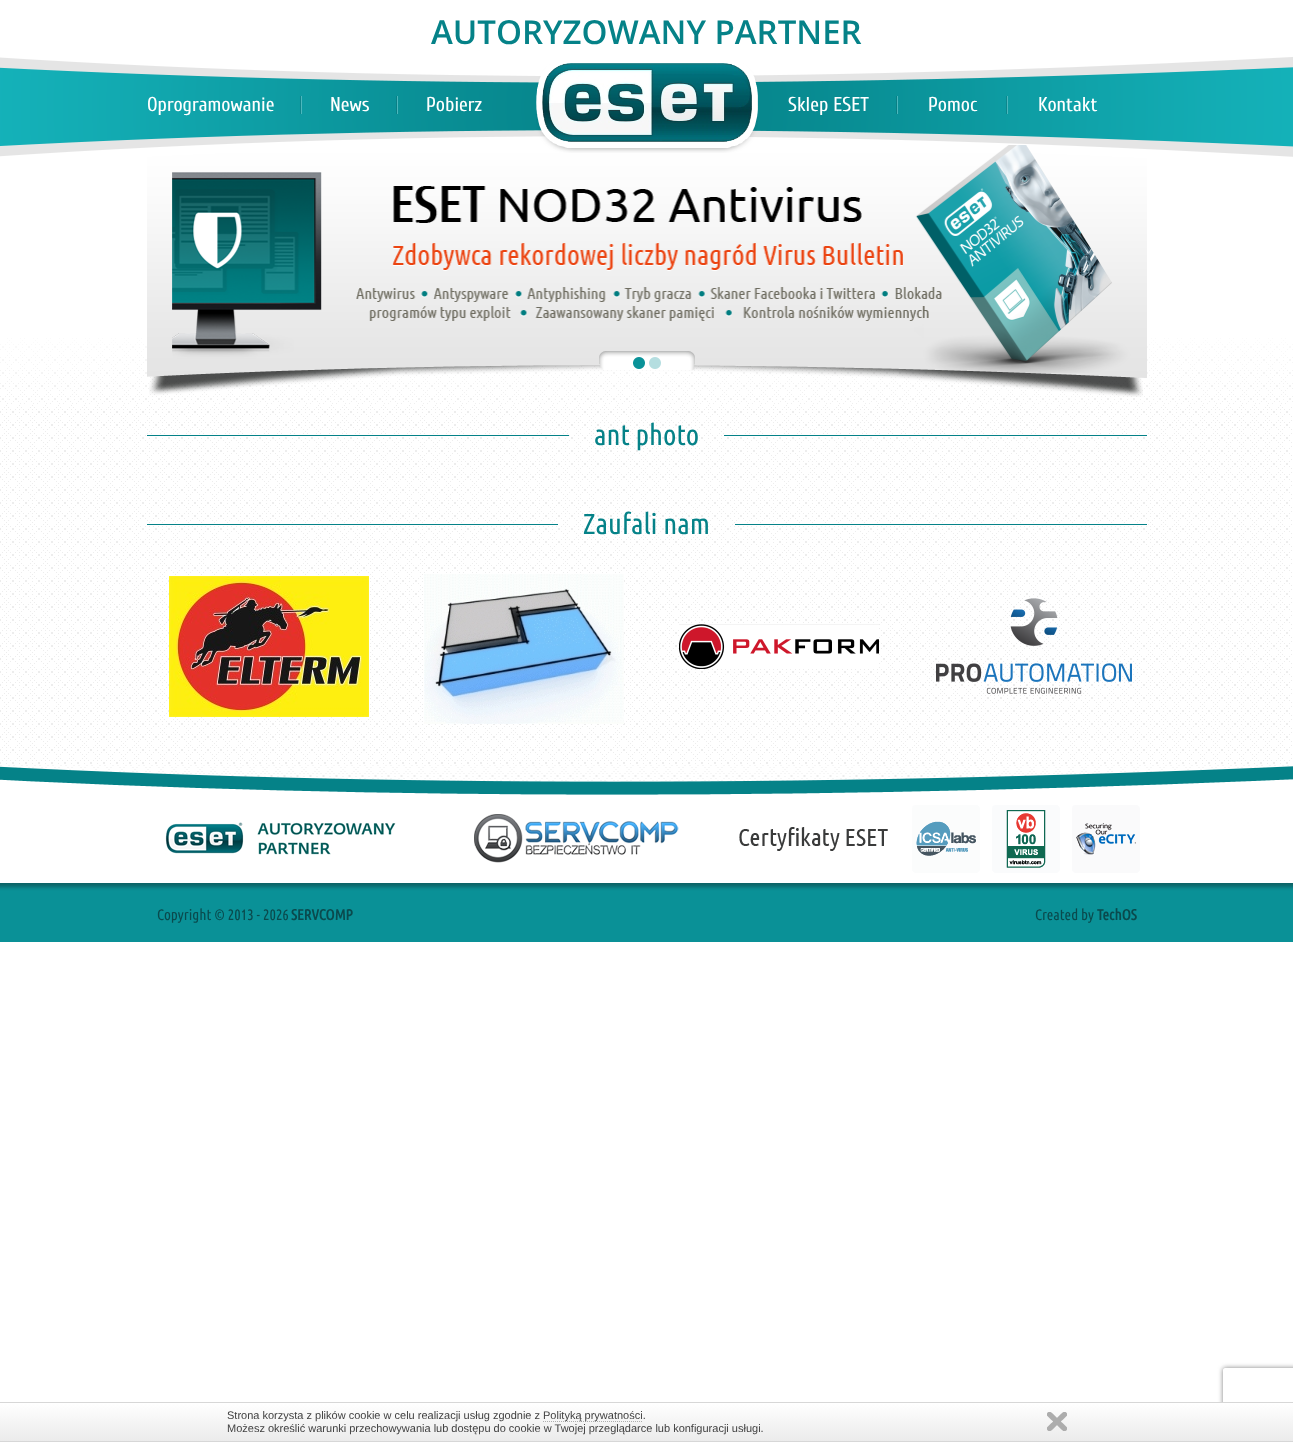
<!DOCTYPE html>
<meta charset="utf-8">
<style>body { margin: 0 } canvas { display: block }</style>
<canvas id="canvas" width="1293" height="1442"></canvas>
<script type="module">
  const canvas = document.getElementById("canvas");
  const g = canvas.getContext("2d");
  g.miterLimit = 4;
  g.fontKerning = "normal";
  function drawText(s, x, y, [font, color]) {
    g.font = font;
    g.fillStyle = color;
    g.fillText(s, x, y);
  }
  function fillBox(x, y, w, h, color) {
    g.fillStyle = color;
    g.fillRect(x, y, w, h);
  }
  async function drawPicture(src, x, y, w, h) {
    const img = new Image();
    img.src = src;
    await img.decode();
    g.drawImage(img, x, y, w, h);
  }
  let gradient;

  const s1 = ["600 33px Open Sans", "#058288"];
  const s2 = ["20px Cuprum", "#FFFFFF"];
  const s3 = ["29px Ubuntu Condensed", "#058288"];
  const s4 = ["15px Ubuntu Condensed", "#0A4A4D"];
  const s5 = ["bold 15px Ubuntu Condensed", "#0A4A4D"];
  const s6 = ["11px Liberation Sans", "#414141"];

  fillBox(0, 0, 1293, 1442, "#FFFFFF");
  await drawPicture("pic1.png", 0, 54, 1293, 106);
  drawText("AUTORYZOWANY PARTNER", 431, 44, s1);
  await drawPicture("pic2.png", 300, 96, 2, 18);
  drawText("Oprogramowanie", 147, 111, s2);
  await drawPicture("pic3.png", 396, 96, 2, 18);
  drawText("News", 330, 111, s2);
  drawText("Pobierz", 426, 111, s2);
  await drawPicture("pic7.png", 0, 338, 1293, 66);
  await drawPicture("pic8.png", 149, 365, 994, 32);
  await drawPicture("pic9.png", 147, 145, 1000, 233);
  await drawPicture("pic4.png", 536, 63, 222, 90);
  await drawPicture("pic5.png", 896, 96, 2, 18);
  drawText("Sklep ESET", 788, 111, s2);
  await drawPicture("pic6.png", 1006, 96, 2, 18);
  drawText("Pomoc", 928, 111, s2);
  drawText("Kontakt", 1038, 111, s2);
  await drawPicture("pic10.png", 599, 351, 96, 20);
  await drawPicture("pic11.png", 633, 357, 12, 12);
  await drawPicture("pic12.png", 649, 357, 12, 12);
  await drawPicture("pic13.png", 0, 405, 1292, 359);
  fillBox(147, 435, 422, 1, "#058288");
  drawText("ant photo", 594, 445, s3);
  fillBox(724, 435, 423, 1, "#058288");
  fillBox(147, 524, 411, 1, "#058288");
  drawText("Zaufali nam", 583, 534, s3);
  fillBox(735, 524, 412, 1, "#058288");
  await drawPicture("pic14.png", 169, 576, 200, 141);
  await drawPicture("pic15.png", 424, 574, 200, 150);
  await drawPicture("pic16.png", 679, 624, 200, 45);
  await drawPicture("pic17.png", 936, 598, 196, 96);
  await drawPicture("pic18.png", 0, 795, 1293, 147);
  await drawPicture("pic19.png", 0, 764, 1293, 31);
  await drawPicture("pic20.png", 165, 822, 231, 33);
  await drawPicture("pic21.png", 474, 814, 205, 49);
  await drawPicture("pic22.png", 739, 805, 401, 68);
  drawText("Copyright © 2013 - 2026", 157, 920, s4);
  drawText("SERVCOMP", 291, 920, s5);
  drawText("Created by", 1035, 920, s4);
  drawText("TechOS", 1097, 920, s5);
  g.save();
  g.beginPath();
  g.moveTo(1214, 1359);
  g.lineTo(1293, 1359);
  g.lineTo(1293, 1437);
  g.lineTo(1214, 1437);
  g.closePath();
  g.moveTo(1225, 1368);
  g.lineTo(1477, 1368);
  g.bezierCurveTo(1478, 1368, 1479, 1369, 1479, 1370);
  g.lineTo(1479, 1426);
  g.bezierCurveTo(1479, 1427, 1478, 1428, 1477, 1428);
  g.lineTo(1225, 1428);
  g.bezierCurveTo(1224, 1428, 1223, 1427, 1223, 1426);
  g.lineTo(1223, 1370);
  g.bezierCurveTo(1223, 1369, 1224, 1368, 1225, 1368);
  g.closePath();
  g.clip("evenodd");
  g.fillStyle = "#808080";
  g.filter = "blur(2.5px)";
  g.beginPath();
  g.roundRect(1223, 1368, 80, 60, 2);
  g.fill();
  g.filter = "none";
  g.restore();
  gradient = g.createLinearGradient(647, 1403, 647, 1441);
  gradient.addColorStop(0, "#FFFFFF");
  gradient.addColorStop(1, "#EBEBEB");
  g.fillStyle = gradient;
  g.fillRect(0, 1403, 1293, 38);
  fillBox(0, 1402, 1293, 1, "#D7D7D7");
  fillBox(0, 1441, 1293, 1, "#D7D7D7");
  drawText("Strona korzysta z plików cookie w celu realizacji usług zgodnie z", 227, 1419, s6);
  g.beginPath();
  g.moveTo(543, 1421.5);
  g.lineTo(642, 1421.5);
  g.strokeStyle = "#AEAEAE";
  g.setLineDash([1, 1]);
  g.stroke();
  drawText("Polityką prywatności.", 543, 1419, s6);
  await drawPicture("pic23.png", 1047, 1412, 20, 19);
  drawText("Możesz określić warunki przechowywania lub dostępu do cookie w Twojej przeglądarce lub konfiguracji usługi.", 227, 1432, s6);
</script>
